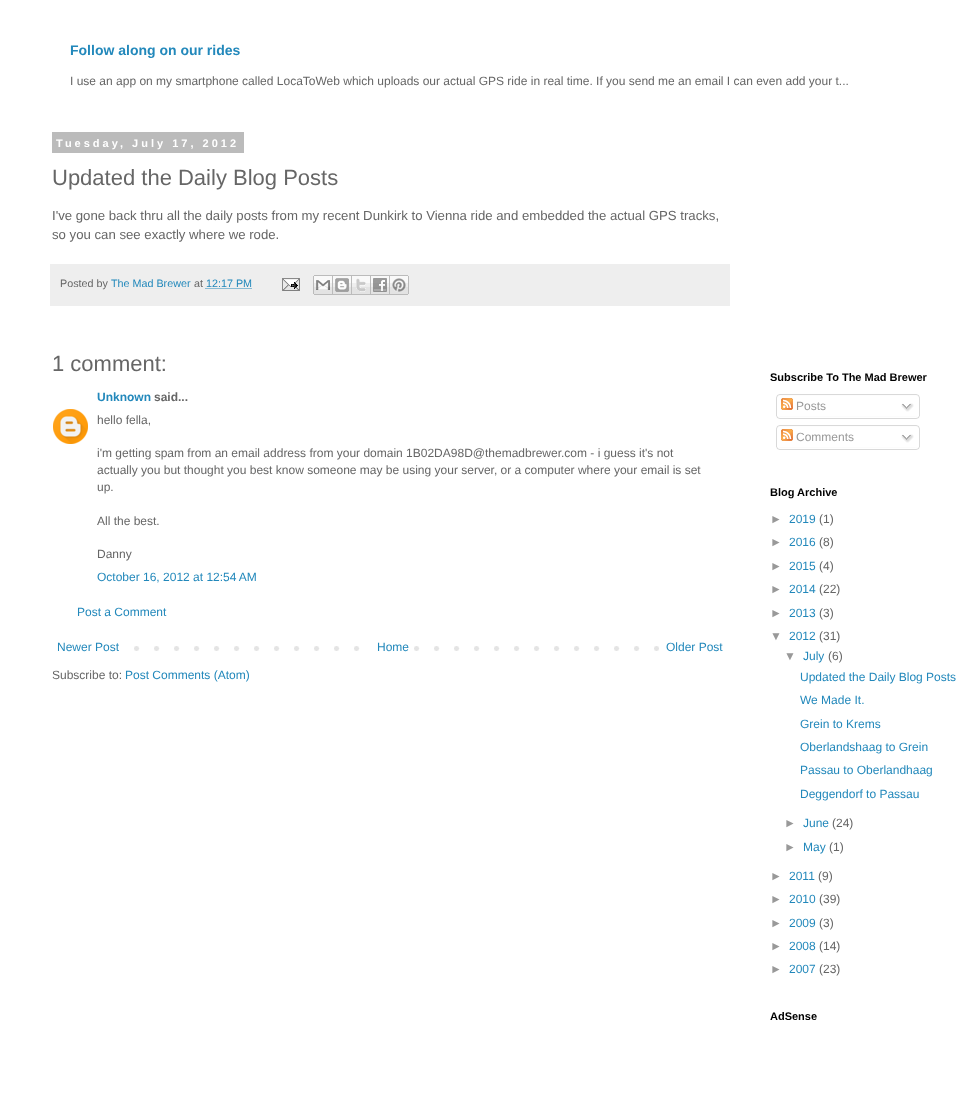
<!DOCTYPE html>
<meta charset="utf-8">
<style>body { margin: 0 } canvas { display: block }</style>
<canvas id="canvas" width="961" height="1114"></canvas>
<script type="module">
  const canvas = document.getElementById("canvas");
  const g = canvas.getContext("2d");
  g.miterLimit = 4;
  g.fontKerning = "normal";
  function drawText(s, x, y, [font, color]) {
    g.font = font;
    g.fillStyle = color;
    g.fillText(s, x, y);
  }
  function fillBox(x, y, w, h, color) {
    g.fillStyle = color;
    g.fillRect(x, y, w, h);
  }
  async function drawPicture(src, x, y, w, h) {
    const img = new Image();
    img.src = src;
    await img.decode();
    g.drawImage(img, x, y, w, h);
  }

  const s1 = ["bold 14px Liberation Sans", "#2288BB"];
  const s2 = ["12px Liberation Sans", "#666666"];
  const s3 = ["bold 11px Liberation Sans", "#FFFFFF"];
  const s4 = ["22px Liberation Sans", "#666666"];
  const s5 = ["13.2px Liberation Sans", "#666666"];
  const s6 = ["10.75px Liberation Sans", "#666666"];
  const s7 = ["10.75px Liberation Sans", "#2288BB"];
  const s8 = ["bold 12px Liberation Sans", "#2288BB"];
  const s9 = ["bold 12px Liberation Sans", "#666666"];
  const s10 = ["12px Liberation Sans", "#2288BB"];
  const s11 = ["bold 11px Liberation Sans", "#000000"];
  const s12 = ["12px Liberation Sans", "#999999"];

  fillBox(0, 0, 961, 1114, "#FFFFFF");
  drawText("Follow along on our rides", 70, 55, s1);
  drawText("I use an app on my smartphone called LocaToWeb which uploads our actual GPS ride in real time. If you send me an email I can even add your t...", 70, 85, s2);
  fillBox(52, 132, 192, 21, "#BBBBBB");
  g.letterSpacing = "3px";
  drawText("Tuesday, July 17, 2012", 56, 147, s3);
  g.letterSpacing = "0px";
  drawText("Updated the Daily Blog Posts", 52, 185, s4);
  drawText("I've gone back thru all the daily posts from my recent Dunkirk to Vienna ride and embedded the actual GPS tracks,", 52, 220, s5);
  drawText("so you can see exactly where we rode.", 52, 239, s5);
  fillBox(50, 264, 680, 42, "#EEEEEE");
  drawText("Posted by", 60, 287, s6);
  drawText("The Mad Brewer", 111, 287, s7);
  drawText("at", 194, 287, s6);
  g.beginPath();
  g.moveTo(205.5, 288.5);
  g.lineTo(252, 288.5);
  g.strokeStyle = "#2288BB";
  g.setLineDash([1, 1]);
  g.stroke();
  drawText("12:17 PM", 206, 287, s7);
  await drawPicture("pic1.png", 282, 278, 18, 13);
  await drawPicture("pic2.png", 313, 275, 20, 20);
  await drawPicture("pic3.png", 333, 275, 19, 20);
  await drawPicture("pic4.png", 352, 275, 19, 20);
  await drawPicture("pic5.png", 371, 275, 19, 20);
  await drawPicture("pic6.png", 390, 275, 19, 20);
  drawText("1 comment:", 52, 371, s4);
  drawText("Unknown", 97, 401, s8);
  drawText("said...", 154, 401, s9);
  await drawPicture("pic7.png", 53, 409, 35, 35);
  drawText("hello fella,", 97, 424, s2);
  drawText("i'm getting spam from an email address from your domain 1B02DA98D@themadbrewer.com - i guess it's not", 97, 457, s2);
  drawText("actually you but thought you best know someone may be using your server, or a computer where your email is set", 97, 474, s2);
  drawText("up.", 97, 491, s2);
  drawText("All the best.", 97, 525, s2);
  drawText("Danny", 97, 558, s2);
  drawText("October 16, 2012 at 12:54 AM", 97, 581, s10);
  drawText("Post a Comment", 77, 616, s10);
  await drawPicture("pic8.png", 134, 646, 525, 5);
  drawText("Newer Post", 57, 651, s10);
  fillBox(374, 646, 26, 5, "#FFFFFF");
  drawText("Home", 377, 651, s10);
  drawText("Older Post", 666, 651, s10);
  drawText("Subscribe to:", 52, 679, s2);
  drawText("Post Comments (Atom)", 125, 679, s10);
  drawText("Subscribe To The Mad Brewer", 770, 381, s11);
  await drawPicture("pic9.png", 776, 394, 144, 22);
  await drawPicture("pic10.png", 781, 398, 12, 12);
  drawText("Posts", 796, 410, s12);
  await drawPicture("pic11.png", 901, 403, 13, 9);
  await drawPicture("pic12.png", 776, 416, 144, 3);
  await drawPicture("pic9.png", 776, 425, 144, 22);
  await drawPicture("pic10.png", 781, 429, 12, 12);
  drawText("Comments", 796, 441, s12);
  await drawPicture("pic11.png", 901, 434, 13, 9);
  await drawPicture("pic12.png", 776, 447, 144, 3);
  drawText("Blog Archive", 770, 496, s11);
  drawText("►", 770, 523, s12);
  drawText("2019", 789, 523, s10);
  drawText("(1)", 819, 523, s2);
  drawText("►", 770, 546, s12);
  drawText("2016", 789, 546, s10);
  drawText("(8)", 819, 546, s2);
  drawText("►", 770, 570, s12);
  drawText("2015", 789, 570, s10);
  drawText("(4)", 819, 570, s2);
  drawText("►", 770, 593, s12);
  drawText("2014", 789, 593, s10);
  drawText("(22)", 819, 593, s2);
  drawText("►", 770, 617, s12);
  drawText("2013", 789, 617, s10);
  drawText("(3)", 819, 617, s2);
  drawText("▼", 770, 640, s12);
  drawText("2012", 789, 640, s10);
  drawText("(31)", 819, 640, s2);
  drawText("▼", 784, 660, s12);
  drawText("July", 803, 660, s10);
  drawText("(6)", 828, 660, s2);
  drawText("Updated the Daily Blog Posts", 800, 681, s10);
  drawText("We Made It.", 800, 704, s10);
  drawText("Grein to Krems", 800, 728, s10);
  drawText("Oberlandshaag to Grein", 800, 751, s10);
  drawText("Passau to Oberlandhaag", 800, 774, s10);
  drawText("Deggendorf to Passau", 800, 798, s10);
  drawText("►", 784, 827, s12);
  drawText("June", 803, 827, s10);
  drawText("(24)", 832, 827, s2);
  drawText("►", 784, 851, s12);
  drawText("May", 803, 851, s10);
  drawText("(1)", 829, 851, s2);
  drawText("►", 770, 880, s12);
  drawText("2011", 789, 880, s10);
  drawText("(9)", 818, 880, s2);
  drawText("►", 770, 903, s12);
  drawText("2010", 789, 903, s10);
  drawText("(39)", 819, 903, s2);
  drawText("►", 770, 927, s12);
  drawText("2009", 789, 927, s10);
  drawText("(3)", 819, 927, s2);
  drawText("►", 770, 950, s12);
  drawText("2008", 789, 950, s10);
  drawText("(14)", 819, 950, s2);
  drawText("►", 770, 973, s12);
  drawText("2007", 789, 973, s10);
  drawText("(23)", 819, 973, s2);
  drawText("AdSense", 770, 1020, s11);
</script>
